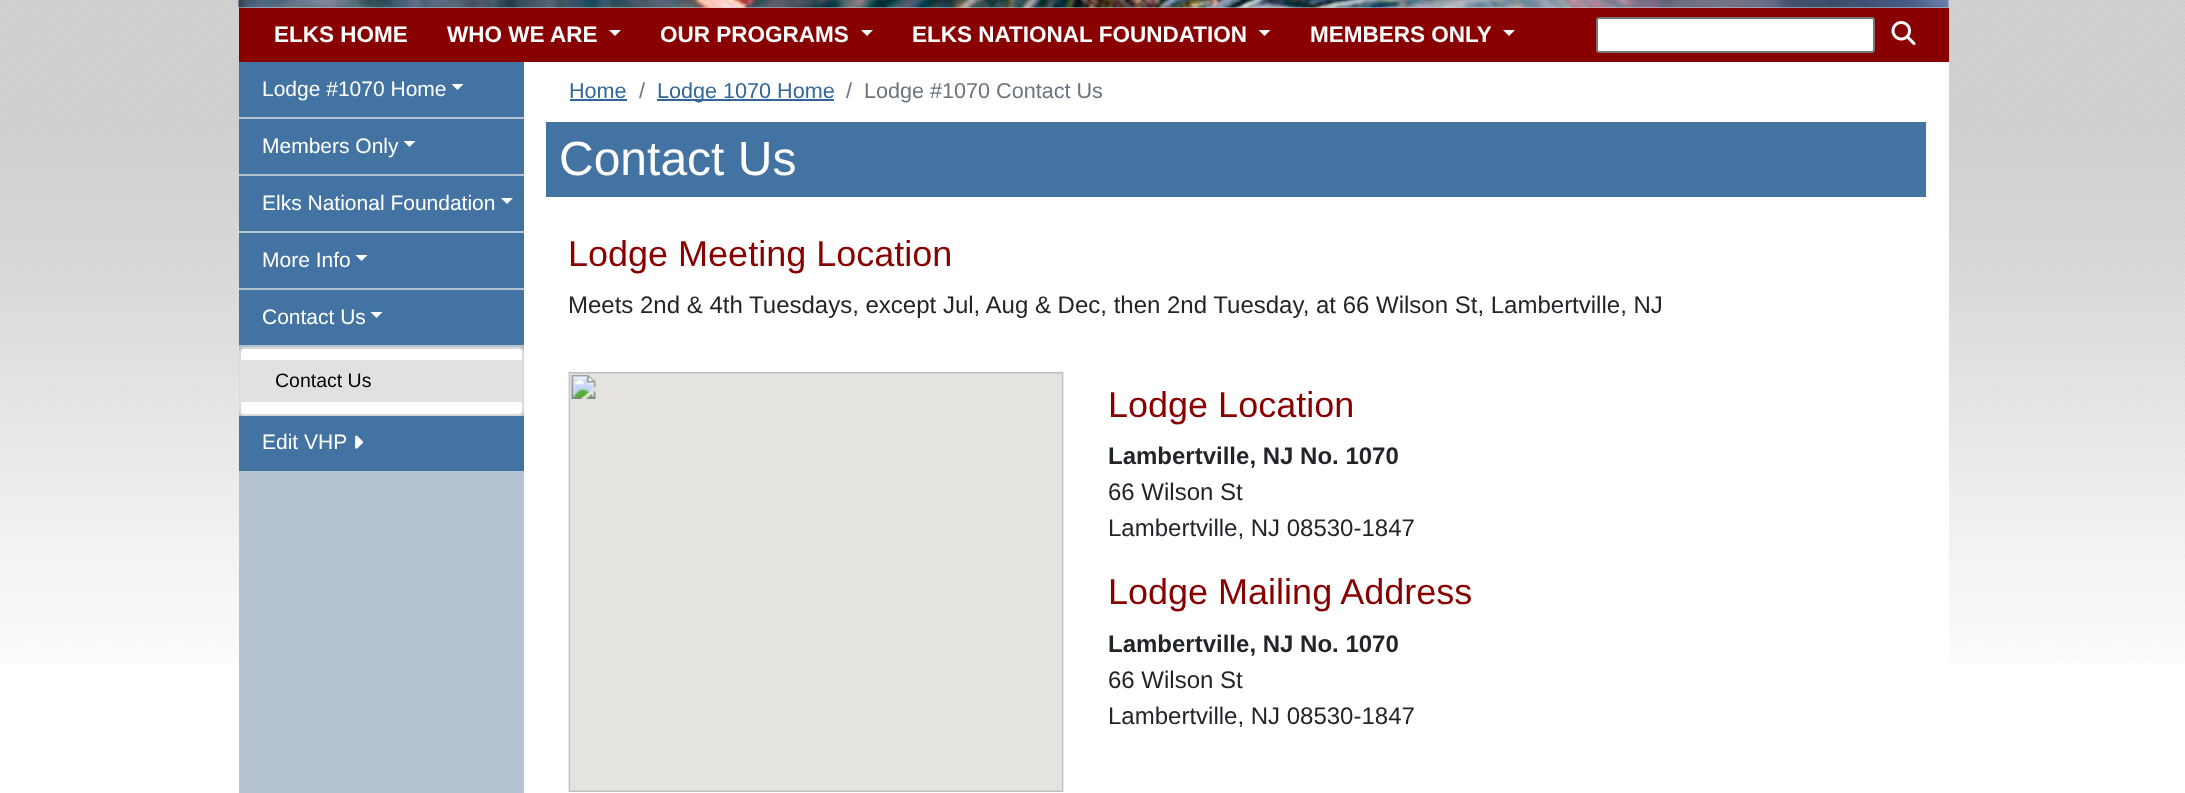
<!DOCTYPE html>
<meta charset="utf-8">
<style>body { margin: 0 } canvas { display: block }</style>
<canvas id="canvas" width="2185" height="793"></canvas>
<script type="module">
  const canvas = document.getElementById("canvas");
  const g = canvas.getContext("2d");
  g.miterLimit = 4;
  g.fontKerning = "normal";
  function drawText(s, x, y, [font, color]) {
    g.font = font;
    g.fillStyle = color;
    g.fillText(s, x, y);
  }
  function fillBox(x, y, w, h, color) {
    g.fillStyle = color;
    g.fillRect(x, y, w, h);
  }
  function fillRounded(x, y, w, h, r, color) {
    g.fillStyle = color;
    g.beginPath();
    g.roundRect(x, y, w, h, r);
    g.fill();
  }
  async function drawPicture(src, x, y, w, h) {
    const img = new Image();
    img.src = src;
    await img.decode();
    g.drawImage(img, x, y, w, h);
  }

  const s1 = ["bold 22.5px Liberation Sans", "#FFFFFF"];
  const s2 = ["21px Liberation Sans", "#FFFFFF"];
  const s3 = ["19.5px Liberation Sans", "#000000"];
  const s4 = ["21.6px Liberation Sans", "#336699"];
  const s5 = ["21.6px Liberation Sans", "#6C757D"];
  const s6 = ["48px Liberation Sans", "#FFFFFF"];
  const s7 = ["36px Liberation Sans", "#880000"];
  const s8 = ["24px Liberation Sans", "#212529"];
  const s9 = ["bold 24px Liberation Sans", "#212529"];

  fillBox(0, 0, 2185, 793, "#FFFFFF");
  await drawPicture("pic1.png", 0, 0, 2185, 663);
  await drawPicture("pic2.png", 238, 0, 1711, 8);
  fillBox(239, 8, 1710, 54, "#880000");
  drawText("ELKS HOME", 274, 42, s1);
  drawText("WHO WE ARE", 447, 42, s1);
  g.beginPath();
  g.moveTo(609, 30);
  g.lineTo(621, 30);
  g.lineTo(615, 36);
  g.closePath();
  g.fill();
  drawText("OUR PROGRAMS", 660, 42, s1);
  g.beginPath();
  g.moveTo(861, 30);
  g.lineTo(873, 30);
  g.lineTo(867, 36);
  g.closePath();
  g.fill();
  drawText("ELKS NATIONAL FOUNDATION", 912, 42, s1);
  g.beginPath();
  g.moveTo(1258.5, 30);
  g.lineTo(1270.5, 30);
  g.lineTo(1264.5, 36);
  g.closePath();
  g.fill();
  drawText("MEMBERS ONLY", 1310, 42, s1);
  g.beginPath();
  g.moveTo(1503, 30);
  g.lineTo(1515, 30);
  g.lineTo(1509, 36);
  g.closePath();
  g.fill();
  g.beginPath();
  g.roundRect(1597, 18, 277, 34, 2);
  g.fill();
  g.strokeStyle = "#767676";
  g.lineWidth = 2;
  g.stroke();
  await drawPicture("pic3.png", 1891, 21, 25, 24);
  fillBox(524, 62, 1425, 601, "#FFFFFF");
  fillBox(239, 117, 285, 676, "#B4C2D2");
  fillBox(239, 62, 285, 55, "#4373A2");
  drawText("Lodge #1070 Home", 262, 96, s2);
  g.beginPath();
  g.moveTo(451.5, 84);
  g.lineTo(463.5, 84);
  g.lineTo(457.5, 90);
  g.closePath();
  g.fill();
  fillBox(239, 119, 285, 55, "#4373A2");
  drawText("Members Only", 262, 153, s2);
  g.beginPath();
  g.moveTo(403.5, 141);
  g.lineTo(415.5, 141);
  g.lineTo(409.5, 147);
  g.closePath();
  g.fill();
  fillBox(239, 176, 285, 55, "#4373A2");
  drawText("Elks National Foundation", 262, 210, s2);
  g.beginPath();
  g.moveTo(501, 198);
  g.lineTo(513, 198);
  g.lineTo(507, 204);
  g.closePath();
  g.fill();
  fillBox(239, 233, 285, 55, "#4373A2");
  drawText("More Info", 262, 267, s2);
  g.beginPath();
  g.moveTo(355.5, 255);
  g.lineTo(367.5, 255);
  g.lineTo(361.5, 261);
  g.closePath();
  g.fill();
  fillBox(239, 290, 285, 55, "#4373A2");
  drawText("Contact Us", 262, 324, s2);
  g.beginPath();
  g.moveTo(370.5, 312);
  g.lineTo(382.5, 312);
  g.lineTo(376.5, 318);
  g.closePath();
  g.fill();
  fillRounded(239, 347, 285, 69, 6, "#FFFFFF");
  g.beginPath();
  g.roundRect(240, 348, 283, 67, 5);
  g.strokeStyle = "rgba(0, 0, 0, 0.15)";
  g.stroke();
  fillBox(240, 360, 282, 42, "#E1E1E1");
  drawText("Contact Us", 275, 387, s3);
  fillBox(239, 416, 285, 55, "#4373A2");
  drawText("Edit VHP", 262, 449, s2);
  await drawPicture("pic4.png", 355, 435, 8, 14);
  drawText("Home", 569, 98, s4);
  fillBox(570, 99, 57, 2, "#336699");
  drawText("/", 639, 98, s5);
  fillBox(657, 99, 177, 2, "#336699");
  drawText("Lodge 1070 Home", 657, 98, s4);
  drawText("/", 846, 98, s5);
  drawText("Lodge #1070 Contact Us", 864, 98, s5);
  fillBox(546, 122, 1380, 75, "#4373A2");
  drawText("Contact Us", 559, 175, s6);
  drawText("Lodge Meeting Location", 568, 266, s7);
  drawText("Meets 2nd & 4th Tuesdays, except Jul, Aug & Dec, then 2nd Tuesday, at 66 Wilson St, Lambertville, NJ", 568, 313, s8);
  await drawPicture("pic5.png", 568, 372, 496, 420);
  drawText("Lodge Location", 1108, 417, s7);
  drawText("Lambertville, NJ No. 1070", 1108, 464, s9);
  drawText("66 Wilson St", 1108, 500, s8);
  drawText("Lambertville, NJ 08530-1847", 1108, 536, s8);
  drawText("Lodge Mailing Address", 1108, 604, s7);
  drawText("Lambertville, NJ No. 1070", 1108, 652, s9);
  drawText("66 Wilson St", 1108, 688, s8);
  drawText("Lambertville, NJ 08530-1847", 1108, 724, s8);
</script>
